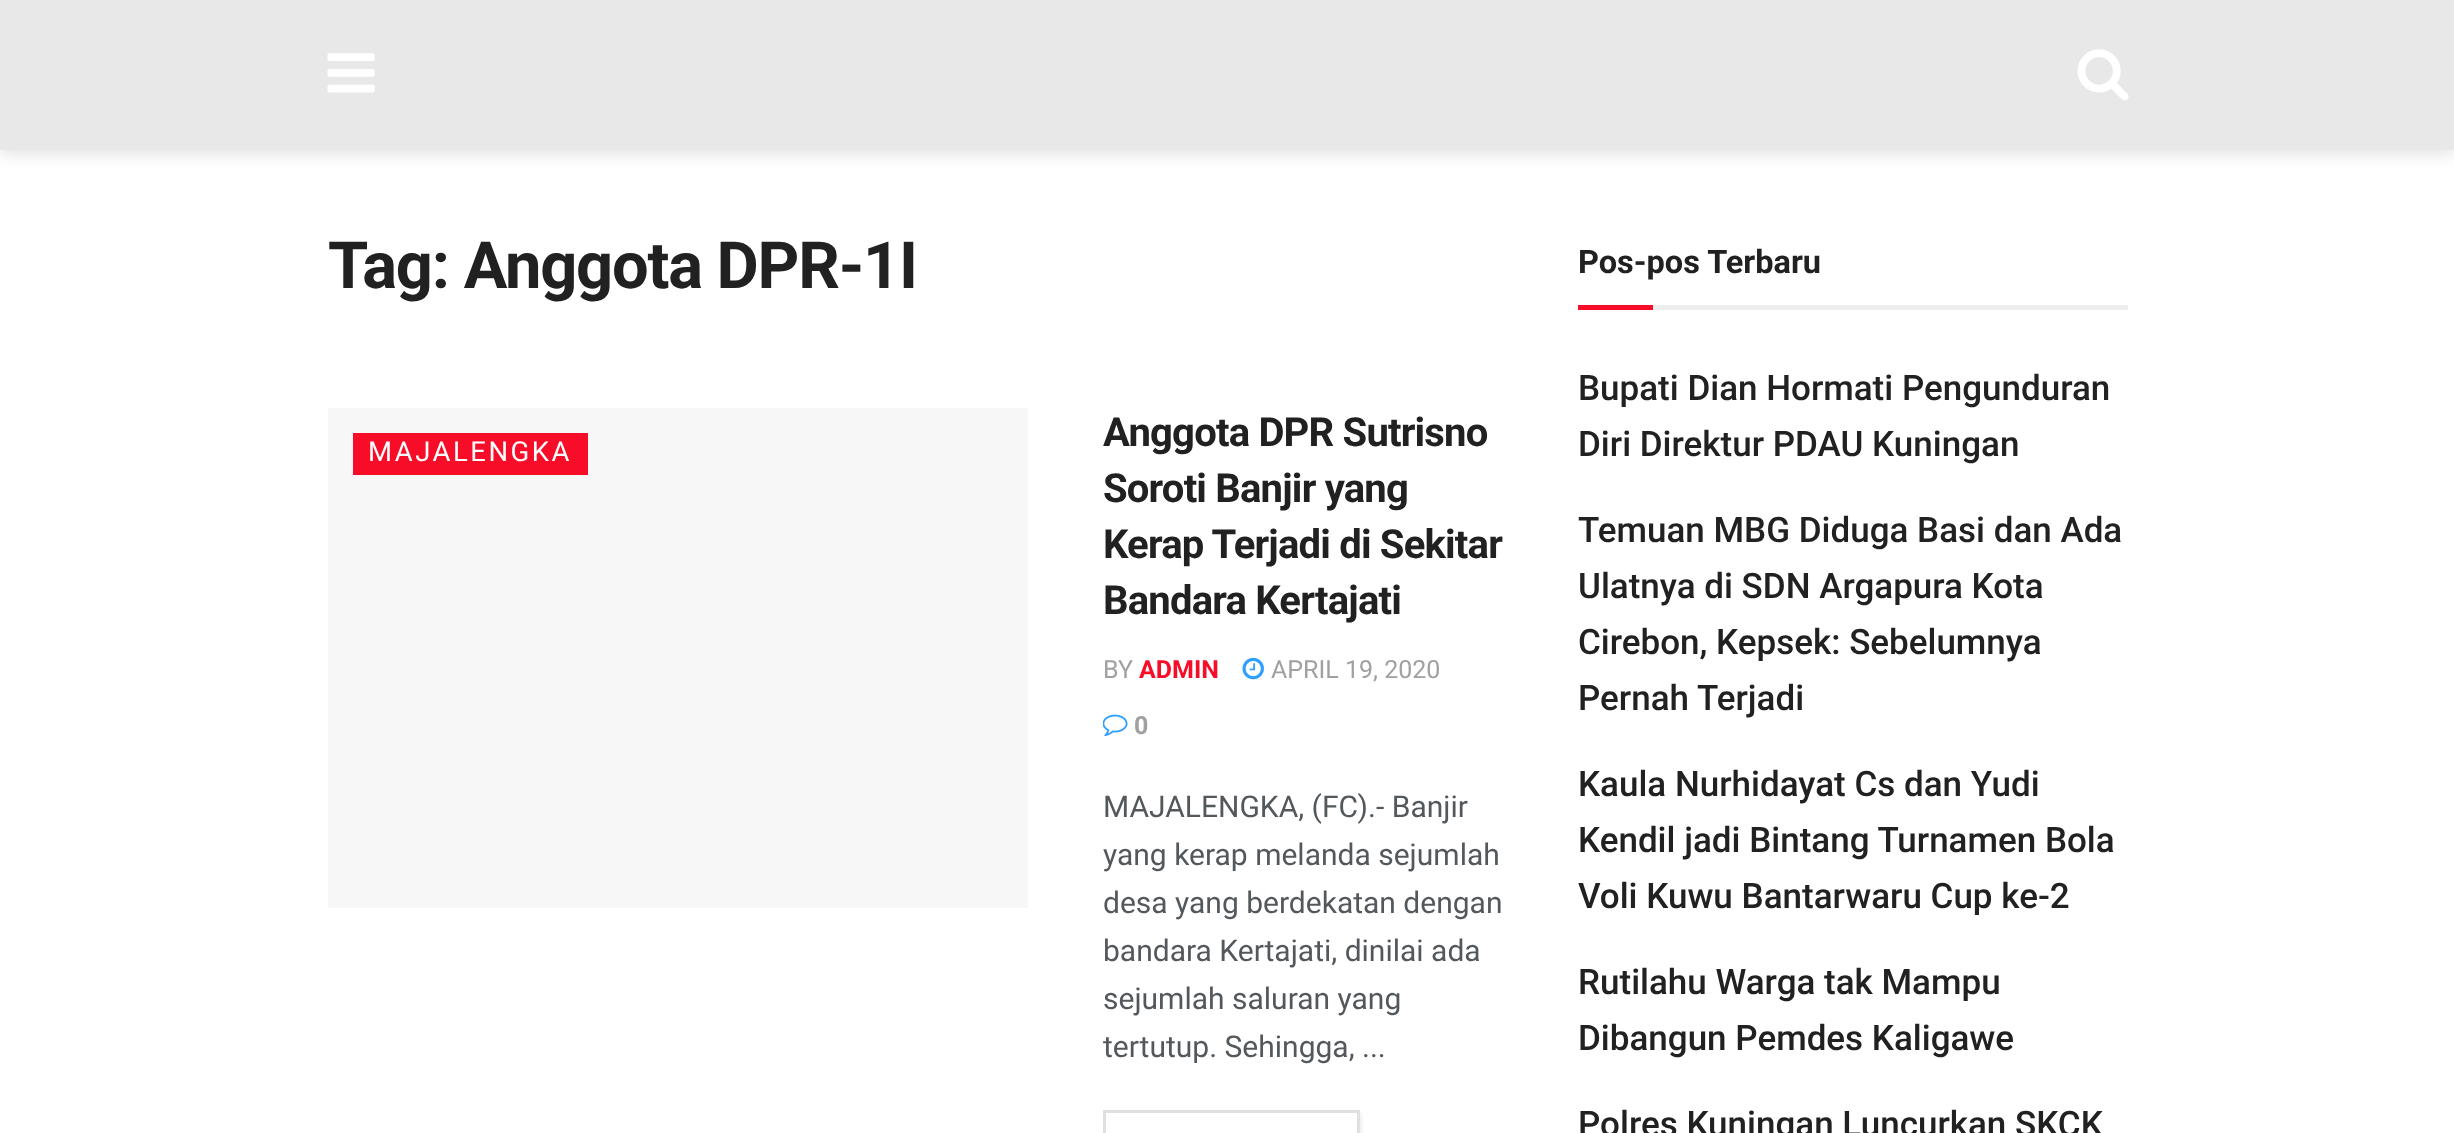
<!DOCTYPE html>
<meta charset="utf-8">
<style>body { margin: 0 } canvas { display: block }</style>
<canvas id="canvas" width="2454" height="1133"></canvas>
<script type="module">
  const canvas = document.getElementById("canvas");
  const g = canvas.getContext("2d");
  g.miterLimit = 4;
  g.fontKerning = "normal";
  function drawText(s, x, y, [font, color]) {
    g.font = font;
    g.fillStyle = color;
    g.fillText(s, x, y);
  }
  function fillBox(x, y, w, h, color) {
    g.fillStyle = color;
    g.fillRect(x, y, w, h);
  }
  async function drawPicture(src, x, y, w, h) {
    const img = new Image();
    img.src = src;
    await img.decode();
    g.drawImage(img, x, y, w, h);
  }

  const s1 = ["bold 65px Roboto", "#212121"];
  const s2 = ["27.5px Roboto", "#FFFFFF"];
  const s3 = ["bold 40px Roboto", "#212121"];
  const s4 = ["25px Roboto", "#A0A0A0"];
  const s5 = ["bold 25px Roboto", "#F70D28"];
  const s6 = ["bold 25px Roboto", "#A0A0A0"];
  const s7 = ["30px Roboto", "#53585C"];
  const s8 = ["bold 32.5px Roboto", "#212121"];
  const s9 = ["500 35px Roboto", "#212121"];

  fillBox(0, 0, 2454, 1133, "#FFFFFF");
  g.fillStyle = "rgba(0, 0, 0, 0.1)";
  g.filter = "blur(7.5px)";
  g.beginPath();
  g.rect(0, 5, 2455, 150);
  g.fill();
  g.filter = "none";
  fillBox(0, 0, 2454, 150, "#E8E8E8");
  await drawPicture("pic1.png", 327, 53, 48, 40);
  await drawPicture("pic2.png", 2077, 49, 52, 52);
  g.letterSpacing = "-1.25px";
  drawText("Tag: Anggota DPR-1I", 328, 288, s1);
  fillBox(328, 408, 700, 500, "#F7F7F7");
  fillBox(353, 433, 235, 42, "#F70D28");
  g.letterSpacing = "2.5px";
  drawText("MAJALENGKA", 368, 461, s2);
  g.letterSpacing = "-0.8px";
  drawText("Anggota DPR Sutrisno", 1103, 446, s3);
  drawText("Soroti Banjir yang", 1103, 502, s3);
  drawText("Kerap Terjadi di Sekitar", 1103, 558, s3);
  drawText("Bandara Kertajati", 1103, 614, s3);
  g.letterSpacing = "0px";
  drawText("BY", 1103, 678, s4);
  drawText("ADMIN", 1139, 678, s5);
  await drawPicture("pic3.png", 1242, 657, 22, 23);
  drawText("APRIL 19, 2020", 1271, 678, s4);
  await drawPicture("pic4.png", 1103, 714, 25, 22);
  drawText("0", 1134, 734, s6);
  drawText("MAJALENGKA, (FC).- Banjir", 1103, 817, s7);
  drawText("yang kerap melanda sejumlah", 1103, 865, s7);
  drawText("desa yang berdekatan dengan", 1103, 913, s7);
  drawText("bandara Kertajati, dinilai ada", 1103, 961, s7);
  drawText("sejumlah saluran yang", 1103, 1009, s7);
  g.save();
  g.beginPath();
  g.rect(1103, 408, 400, 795);
  g.clip();
  drawText("tertutup. Sehingga, ...", 1103, 1057, s7);
  g.restore();
  g.save();
  g.beginPath();
  g.rect(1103, 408, 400, 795);
  g.clip();
  g.beginPath();
  g.rect(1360, 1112, 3, 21);
  g.clip();
  g.fillStyle = "rgba(0, 0, 0, 0.1)";
  g.filter = "blur(4px)";
  g.beginPath();
  g.rect(1103, 1113, 257, 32);
  g.fill();
  g.filter = "none";
  g.restore();
  g.strokeStyle = "#E0E0E0";
  g.lineWidth = 3;
  g.strokeRect(1104.5, 1111.5, 254, 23);
  fillBox(1653, 305, 475, 5, "#EEEEEE");
  drawText("Pos-pos Terbaru", 1578, 273, s8);
  fillBox(1578, 305, 75, 5, "#F70D28");
  drawText("Bupati Dian Hormati Pengunduran", 1578, 400, s9);
  drawText("Diri Direktur PDAU Kuningan", 1578, 456, s9);
  drawText("Temuan MBG Diduga Basi dan Ada", 1578, 542, s9);
  drawText("Ulatnya di SDN Argapura Kota", 1578, 598, s9);
  drawText("Cirebon, Kepsek: Sebelumnya", 1578, 654, s9);
  drawText("Pernah Terjadi", 1578, 710, s9);
  drawText("Kaula Nurhidayat Cs dan Yudi", 1578, 796, s9);
  drawText("Kendil jadi Bintang Turnamen Bola", 1578, 852, s9);
  drawText("Voli Kuwu Bantarwaru Cup ke-2", 1578, 908, s9);
  drawText("Rutilahu Warga tak Mampu", 1578, 994, s9);
  drawText("Dibangun Pemdes Kaligawe", 1578, 1050, s9);
  drawText("Polres Kuningan Luncurkan SKCK", 1578, 1136, s9);
</script>
